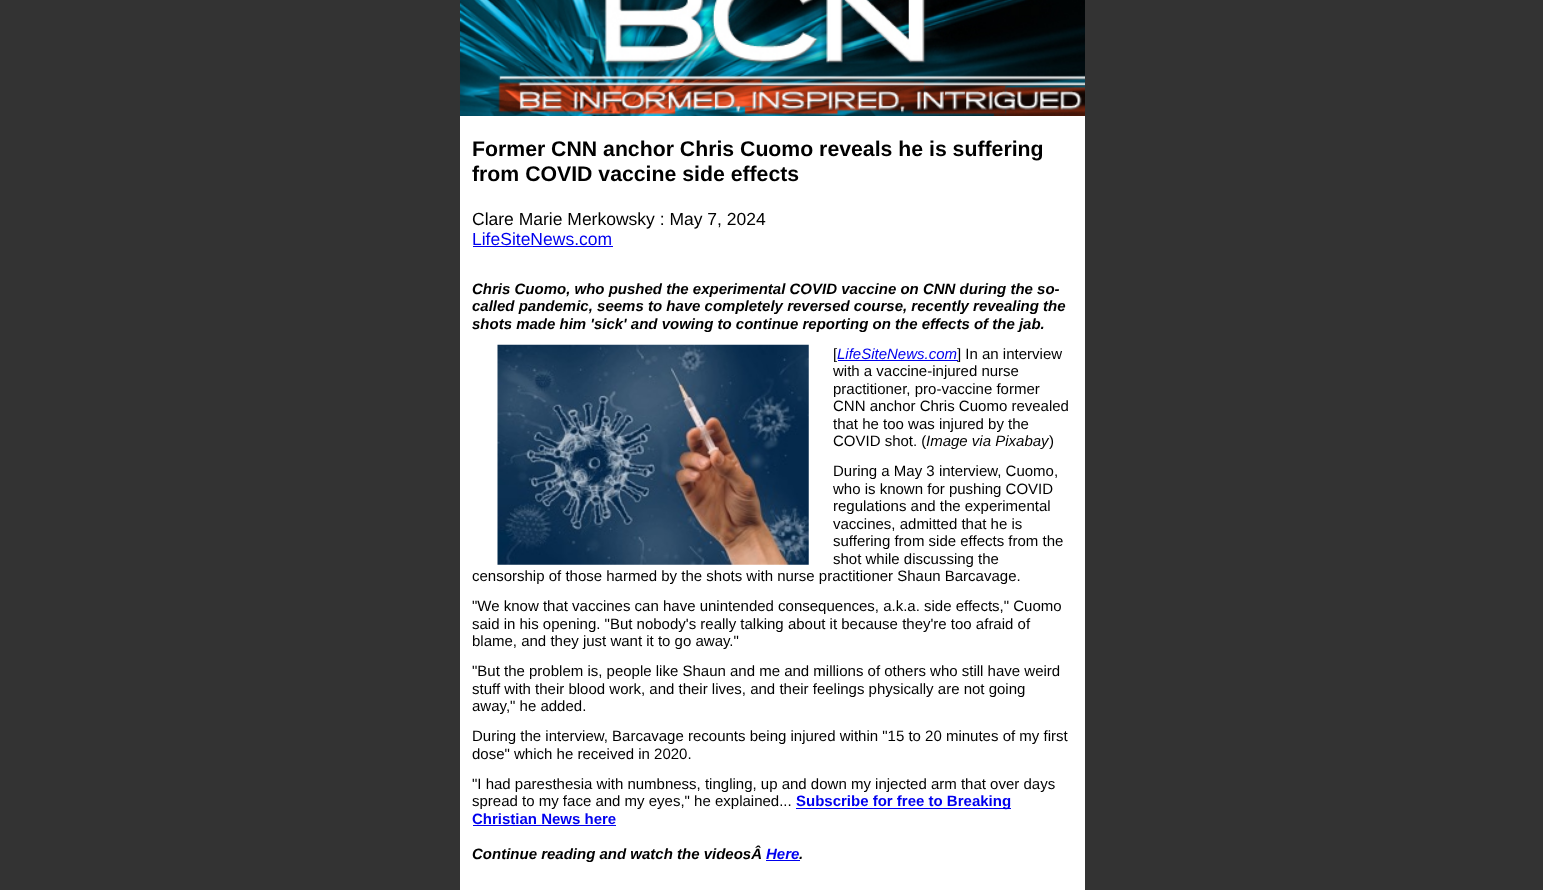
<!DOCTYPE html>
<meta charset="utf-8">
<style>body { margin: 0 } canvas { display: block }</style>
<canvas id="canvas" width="1543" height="890"></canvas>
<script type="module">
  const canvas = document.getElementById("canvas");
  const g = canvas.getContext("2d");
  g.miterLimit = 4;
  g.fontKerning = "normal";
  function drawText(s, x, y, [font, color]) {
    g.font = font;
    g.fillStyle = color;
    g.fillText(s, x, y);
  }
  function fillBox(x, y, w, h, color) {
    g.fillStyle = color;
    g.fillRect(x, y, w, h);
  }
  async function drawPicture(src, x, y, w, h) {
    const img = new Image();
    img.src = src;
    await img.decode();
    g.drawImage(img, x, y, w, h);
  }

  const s1 = ["bold 21.25px Liberation Sans", "#000000"];
  const s2 = ["17.5px Liberation Sans", "#000000"];
  const s3 = ["17.5px Liberation Sans", "#0000EE"];
  const s4 = ["italic bold 15px Liberation Sans", "#000000"];
  const s5 = ["15px Liberation Sans", "#000000"];
  const s6 = ["italic 15px Liberation Sans", "#0000EE"];
  const s7 = ["italic 15px Liberation Sans", "#000000"];
  const s8 = ["bold 15px Liberation Sans", "#0000EE"];
  const s9 = ["italic bold 15px Liberation Sans", "#0000EE"];

  fillBox(0, 0, 1543, 890, "#333333");
  fillBox(460, 116, 625, 774, "#FFFFFF");
  await drawPicture("pic1.png", 460, 0, 625, 116);
  drawText("Former CNN anchor Chris Cuomo reveals he is suffering", 472, 156, s1);
  drawText("from COVID vaccine side effects", 472, 181, s1);
  drawText("Clare Marie Merkowsky : May 7, 2024", 472, 225, s2);
  drawText("LifeSiteNews.com", 472, 245, s3);
  fillBox(473, 246, 140, 1, "#0000EE");
  drawText("Chris Cuomo, who pushed the experimental COVID vaccine on CNN during the so-", 472, 294, s4);
  drawText("called pandemic, seems to have completely reversed course, recently revealing the", 472, 311, s4);
  drawText("shots made him 'sick' and vowing to continue reporting on the effects of the jab.", 472, 329, s4);
  await drawPicture("pic2.png", 497, 344, 312, 221);
  drawText("[", 833, 359, s5);
  drawText("LifeSiteNews.com", 837, 359, s6);
  fillBox(838, 360, 120, 1, "#0000EE");
  drawText("] In an interview", 957, 359, s5);
  drawText("with a vaccine-injured nurse", 833, 376, s5);
  drawText("practitioner, pro-vaccine former", 833, 394, s5);
  drawText("CNN anchor Chris Cuomo revealed", 833, 411, s5);
  drawText("that he too was injured by the", 833, 429, s5);
  drawText("COVID shot. (", 833, 446, s5);
  drawText("Image via Pixabay", 926, 446, s7);
  drawText(")", 1049, 446, s5);
  drawText("During a May 3 interview, Cuomo,", 833, 476, s5);
  drawText("who is known for pushing COVID", 833, 494, s5);
  drawText("regulations and the experimental", 833, 511, s5);
  drawText("vaccines, admitted that he is", 833, 529, s5);
  drawText("suffering from side effects from the", 833, 546, s5);
  drawText("shot while discussing the", 833, 564, s5);
  drawText("censorship of those harmed by the shots with nurse practitioner Shaun Barcavage.", 472, 581, s5);
  drawText("\"We know that vaccines can have unintended consequences, a.k.a. side effects,\" Cuomo", 472, 611, s5);
  drawText("said in his opening. \"But nobody's really talking about it because they're too afraid of", 472, 629, s5);
  drawText("blame, and they just want it to go away.\"", 472, 646, s5);
  drawText("\"But the problem is, people like Shaun and me and millions of others who still have weird", 472, 676, s5);
  drawText("stuff with their blood work, and their lives, and their feelings physically are not going", 472, 694, s5);
  drawText("away,\" he added.", 472, 711, s5);
  drawText("During the interview, Barcavage recounts being injured within \"15 to 20 minutes of my first", 472, 741, s5);
  drawText("dose\" which he received in 2020.", 472, 759, s5);
  drawText("\"I had paresthesia with numbness, tingling, up and down my injected arm that over days", 472, 789, s5);
  drawText("spread to my face and my eyes,\" he explained...", 472, 806, s5);
  fillBox(796, 808, 215, 1, "#0000EE");
  drawText("Subscribe for free to Breaking", 796, 806, s8);
  drawText("Christian News here", 472, 824, s8);
  fillBox(473, 825, 143, 1, "#0000EE");
  drawText("Continue reading and watch the videosÂ", 472, 859, s4);
  drawText("Here", 766, 859, s9);
  drawText(".", 799, 859, s4);
  fillBox(766, 860, 34, 1, "#0000EE");
</script>
